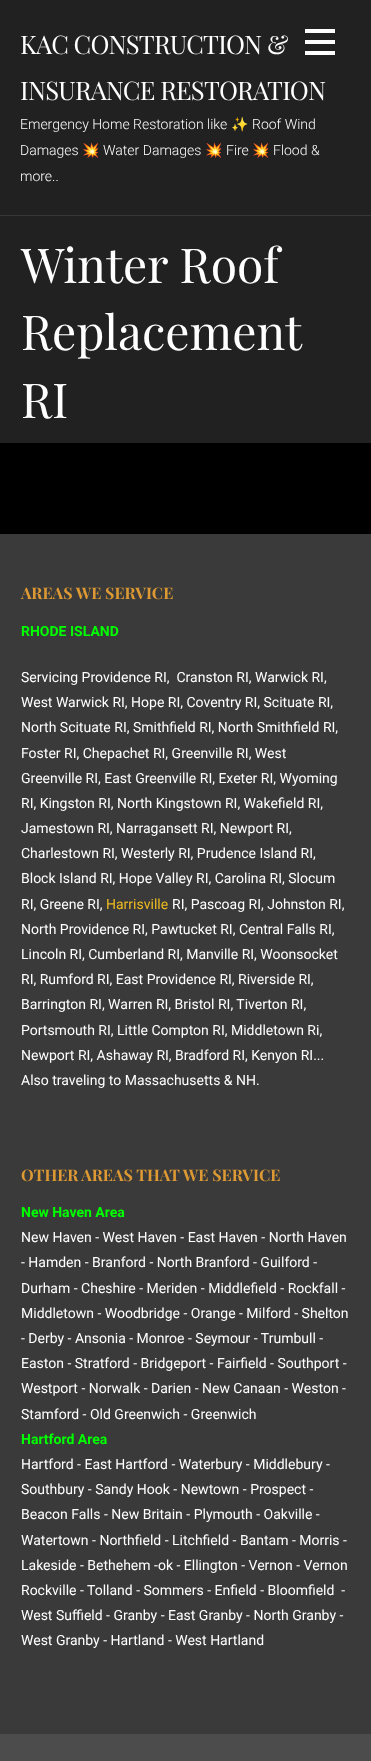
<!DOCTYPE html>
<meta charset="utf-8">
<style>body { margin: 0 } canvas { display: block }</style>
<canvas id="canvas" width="371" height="1761"></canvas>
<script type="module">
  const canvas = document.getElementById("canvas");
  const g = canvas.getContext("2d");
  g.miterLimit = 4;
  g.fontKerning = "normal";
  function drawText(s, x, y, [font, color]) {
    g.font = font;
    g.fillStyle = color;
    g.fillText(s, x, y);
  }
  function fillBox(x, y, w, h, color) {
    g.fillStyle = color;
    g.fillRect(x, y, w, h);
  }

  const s1 = ["25.6px Playfair Display", "#FFFFFF"];
  const s2 = ["300 14px Roboto", "#FFFFFF"];
  const s3 = ["14px Noto Color Emoji", "#FFFFFF"];
  const s4 = ["48px Playfair Display", "#FFFFFF"];
  const s5 = ["bold 16px Playfair Display", "#DD9933"];
  const s6 = ["bold 14px Roboto", "#00FF00"];
  const s7 = ["14px Roboto", "#FFFFFF"];
  const s8 = ["14px Roboto", "#EFBB1F"];

  fillBox(0, 0, 371, 1761, "#000000");
  fillBox(0, 0, 371, 443, "#212121");
  fillBox(0, 215, 371, 1, "#373737");
  fillBox(305, 29, 30, 4, "#FFFFFF");
  fillBox(305, 40, 30, 4, "#FFFFFF");
  fillBox(305, 51, 30, 4, "#FFFFFF");
  g.letterSpacing = "-0.75px";
  drawText("KAC CONSTRUCTION &", 20, 54, s1);
  drawText("INSURANCE RESTORATION", 20, 100, s1);
  g.letterSpacing = "0px";
  drawText("Emergency Home Restoration like", 20, 129, s2);
  drawText("✨", 231, 129, s3);
  drawText("Roof Wind", 252, 129, s2);
  drawText("Damages", 20, 155, s2);
  drawText("💥", 82, 155, s3);
  drawText("Water Damages", 103, 155, s2);
  drawText("💥", 205, 155, s3);
  drawText("Fire", 226, 155, s2);
  drawText("💥", 252, 155, s3);
  drawText("Flood &", 273, 155, s2);
  drawText("more..", 20, 181, s2);
  drawText("Winter Roof", 21, 283, s4);
  drawText("Replacement", 21, 350, s4);
  drawText("RI", 21, 418, s4);
  fillBox(0, 534, 371, 1200, "#3A3A3A");
  drawText("AREAS WE SERVICE", 21, 599, s5);
  drawText("RHODE ISLAND", 21, 636, s6);
  drawText("Servicing Providence RI,  Cranston RI, Warwick RI,", 21, 682, s7);
  drawText("West Warwick RI, Hope RI, Coventry RI, Scituate RI,", 21, 707, s7);
  drawText("North Scituate RI, Smithfield RI, North Smithfield RI,", 21, 732, s7);
  drawText("Foster RI, Chepachet RI, Greenville RI, West", 21, 758, s7);
  drawText("Greenville RI, East Greenville RI, Exeter RI, Wyoming", 21, 783, s7);
  drawText("RI, Kingston RI, North Kingstown RI, Wakefield RI,", 21, 808, s7);
  drawText("Jamestown RI, Narragansett RI, Newport RI,", 21, 833, s7);
  drawText("Charlestown RI, Westerly RI, Prudence Island RI,", 21, 858, s7);
  drawText("Block Island RI, Hope Valley RI, Carolina RI, Slocum", 21, 883, s7);
  drawText("RI, Greene RI,", 21, 909, s7);
  drawText("Harrisville", 106, 909, s8);
  drawText("RI, Pascoag RI, Johnston RI,", 172, 909, s7);
  drawText("North Providence RI, Pawtucket RI, Central Falls RI,", 21, 934, s7);
  drawText("Lincoln RI, Cumberland RI, Manville RI, Woonsocket", 21, 959, s7);
  drawText("RI, Rumford RI, East Providence RI, Riverside RI,", 21, 984, s7);
  drawText("Barrington RI, Warren RI, Bristol RI, Tiverton RI,", 21, 1009, s7);
  drawText("Portsmouth RI, Little Compton RI, Middletown Ri,", 21, 1035, s7);
  drawText("Newport RI, Ashaway RI, Bradford RI, Kenyon RI...", 21, 1060, s7);
  drawText("Also traveling to Massachusetts & NH.", 21, 1085, s7);
  drawText("OTHER AREAS THAT WE SERVICE", 21, 1181, s5);
  drawText("New Haven Area", 21, 1217, s6);
  drawText("New Haven - West Haven - East Haven - North Haven", 21, 1242, s7);
  drawText("- Hamden - Branford - North Branford - Guilford -", 21, 1267, s7);
  drawText("Durham - Cheshire - Meriden - Middlefield - Rockfall -", 21, 1293, s7);
  drawText("Middletown - Woodbridge - Orange - Milford - Shelton", 21, 1318, s7);
  drawText("- Derby - Ansonia - Monroe - Seymour - Trumbull -", 21, 1343, s7);
  drawText("Easton - Stratford - Bridgeport - Fairfield - Southport -", 21, 1368, s7);
  drawText("Westport - Norwalk - Darien - New Canaan - Weston -", 21, 1393, s7);
  drawText("Stamford - Old Greenwich - Greenwich", 21, 1419, s7);
  drawText("Hartford Area", 21, 1444, s6);
  drawText("Hartford - East Hartford - Waterbury - Middlebury -", 21, 1469, s7);
  drawText("Southbury - Sandy Hook - Newtown - Prospect -", 21, 1494, s7);
  drawText("Beacon Falls - New Britain - Plymouth - Oakville -", 21, 1519, s7);
  drawText("Watertown - Northfield - Litchfield - Bantam - Morris -", 21, 1545, s7);
  drawText("Lakeside - Bethehem -ok - Ellington - Vernon - Vernon", 21, 1570, s7);
  drawText("Rockville - Tolland - Sommers - Enfield - Bloomfield  -", 21, 1595, s7);
  drawText("West Suffield - Granby - East Granby - North Granby -", 21, 1620, s7);
  drawText("West Granby - Hartland - West Hartland", 21, 1645, s7);
  fillBox(0, 1734, 371, 27, "#4C4C4C");
</script>
